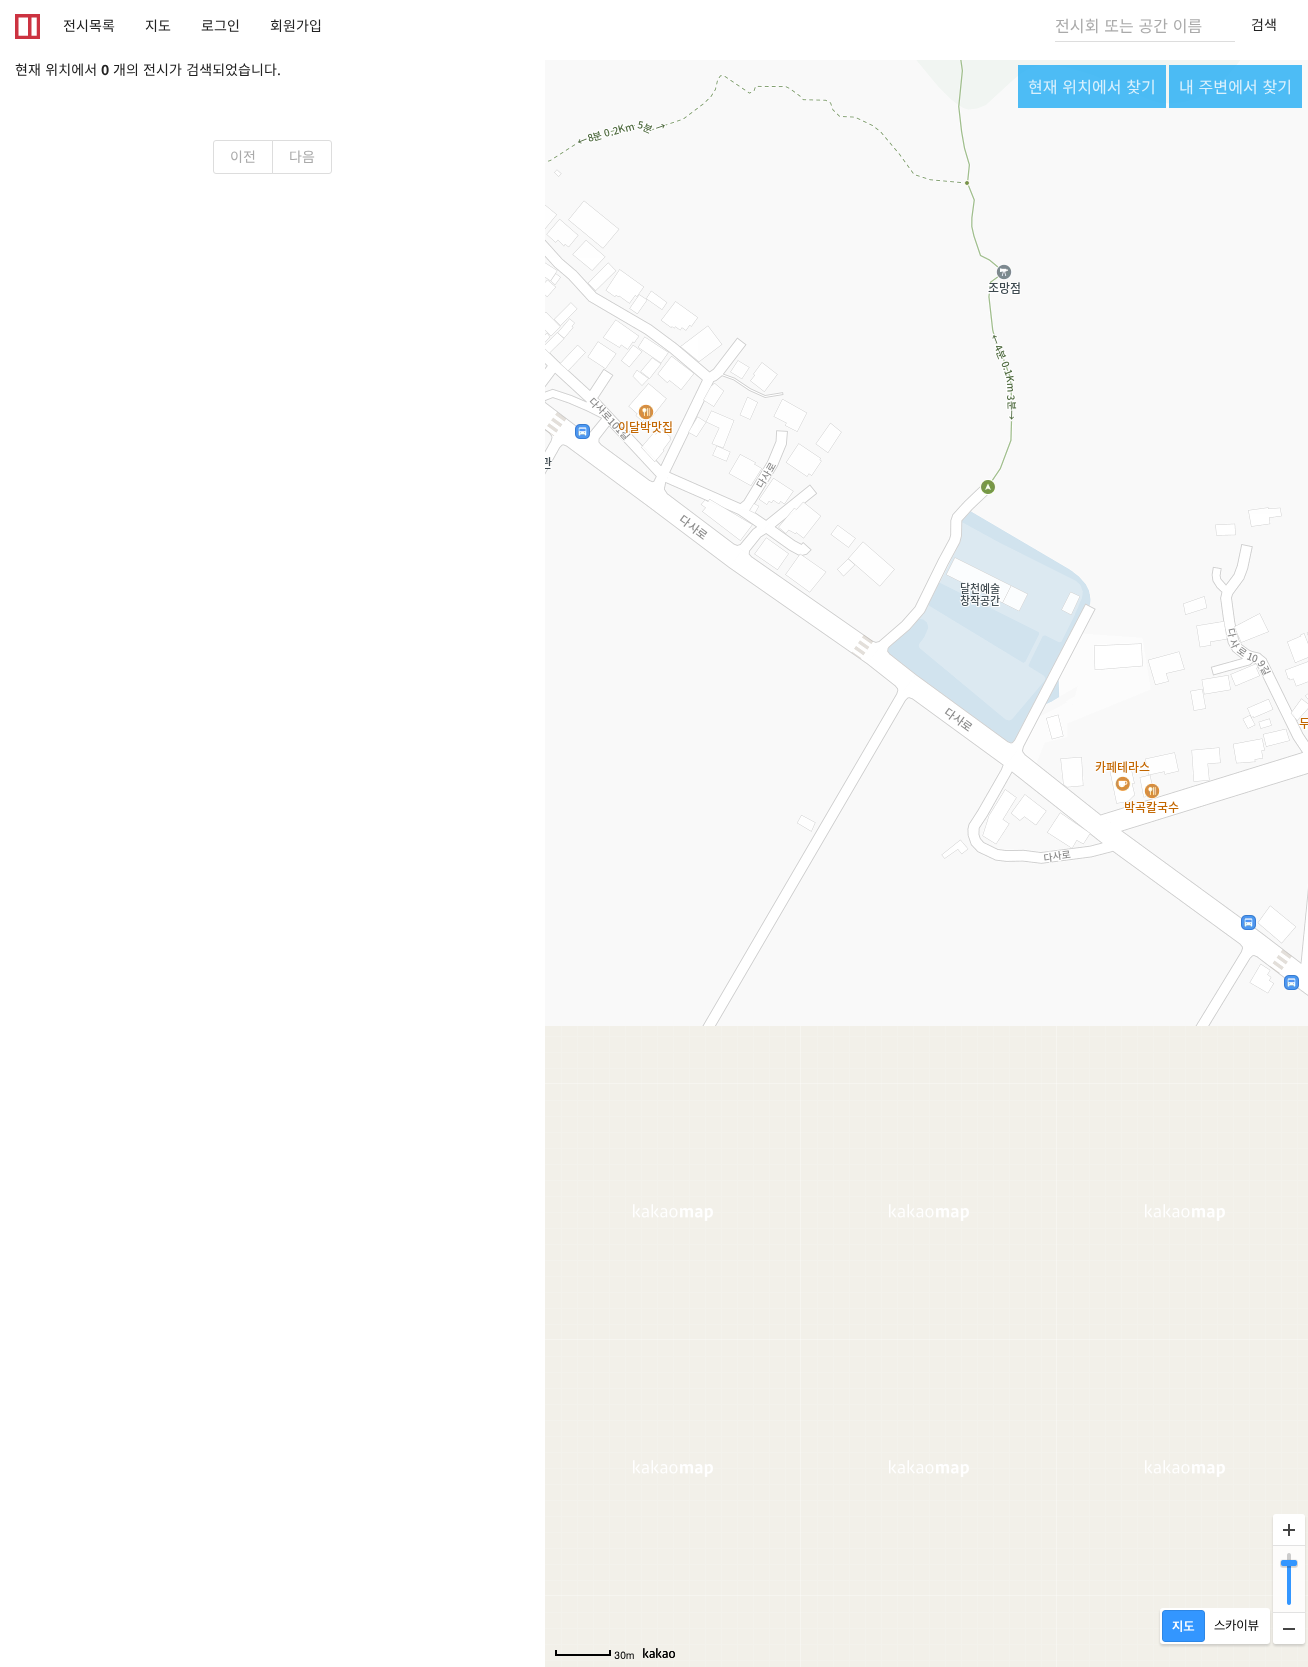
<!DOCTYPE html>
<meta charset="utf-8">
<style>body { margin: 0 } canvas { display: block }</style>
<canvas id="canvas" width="1308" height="1667"></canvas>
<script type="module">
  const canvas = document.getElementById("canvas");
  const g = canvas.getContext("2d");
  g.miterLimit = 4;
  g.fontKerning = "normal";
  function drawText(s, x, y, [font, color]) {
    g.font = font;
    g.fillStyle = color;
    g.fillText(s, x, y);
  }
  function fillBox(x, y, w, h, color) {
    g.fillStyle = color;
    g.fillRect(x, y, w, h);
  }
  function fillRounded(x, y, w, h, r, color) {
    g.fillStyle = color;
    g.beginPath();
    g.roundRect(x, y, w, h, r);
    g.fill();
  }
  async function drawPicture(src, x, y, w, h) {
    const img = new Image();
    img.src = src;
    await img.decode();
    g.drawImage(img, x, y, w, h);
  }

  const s1 = ["14px Noto Sans KR", "#212121"];
  const s2 = ["16px Noto Sans KR", "#AAAAAA"];
  const s3 = ["bold 14px Noto Sans KR", "#212121"];
  const s4 = ["14px Noto Sans KR", "#AAAAAA"];
  const s5 = ["16px Noto Sans KR", "#DBF1FD"];
  const s6 = ["bold 10px Dotum", "#000000"];

  fillBox(0, 0, 1308, 1667, "#FFFFFF");
  await drawPicture("pic1.png", 15, 14, 25, 25);
  g.letterSpacing = "0.1px";
  drawText("전시목록", 63, 31, s1);
  drawText("지도", 145, 31, s1);
  drawText("로그인", 201, 31, s1);
  drawText("회원가입", 270, 31, s1);
  fillBox(1055, 41, 180, 1, "#DDDDDD");
  g.wordSpacing = "1px";
  drawText("전시회 또는 공간 이름", 1055, 32, s2);
  g.wordSpacing = "0px";
  drawText("검색", 1251, 30, s1);
  g.wordSpacing = "1px";
  drawText("현재 위치에서", 15, 75, s1);
  g.wordSpacing = "0px";
  drawText("0", 101, 75, s3);
  drawText("개의", 113, 75, s1);
  g.wordSpacing = "1px";
  drawText("전시가 검색되었습니다.", 143, 75, s1);
  g.beginPath();
  g.roundRect(213.5, 140.5, 59, 33, [2.5, 0, 0, 2.5]);
  g.strokeStyle = "#DDDDDD";
  g.stroke();
  g.wordSpacing = "0px";
  drawText("이전", 230, 162, s4);
  g.fillStyle = "#FFFFFF";
  g.beginPath();
  g.roundRect(272.5, 140.5, 59, 33, [0, 2.5, 2.5, 0]);
  g.fill();
  g.stroke();
  drawText("다음", 289, 162, s4);
  await drawPicture("pic5.png", 954, 60, 256, 198);
  fillBox(1018, 65, 148, 43, "rgba(34, 172, 244, 0.8)");
  g.wordSpacing = "1px";
  drawText("현재 위치에서 찾기", 1028, 93, s5);
  await drawPicture("pic6.png", 1210, 60, 98, 198);
  fillBox(1169, 65, 133, 43, "rgba(34, 172, 244, 0.8)");
  drawText("내 주변에서 찾기", 1179, 93, s5);
  await drawPicture("pic2.png", 545, 1026, 763, 641);
  await drawPicture("pic3.png", 545, 60, 153, 198);
  await drawPicture("pic4.png", 698, 60, 256, 198);
  await drawPicture("pic7.png", 545, 258, 153, 256);
  await drawPicture("pic8.png", 698, 258, 256, 256);
  await drawPicture("pic9.png", 954, 258, 256, 256);
  await drawPicture("pic10.png", 1210, 258, 98, 256);
  await drawPicture("pic11.png", 545, 514, 153, 256);
  await drawPicture("pic12.png", 698, 514, 256, 256);
  await drawPicture("pic13.png", 954, 514, 256, 256);
  await drawPicture("pic14.png", 1210, 514, 98, 256);
  fillBox(545, 770, 153, 256, "#F9F9F9");
  await drawPicture("pic15.png", 698, 770, 256, 256);
  await drawPicture("pic16.png", 954, 770, 256, 256);
  await drawPicture("pic17.png", 1210, 770, 98, 256);
  g.save();
  g.beginPath();
  g.moveTo(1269, 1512);
  g.lineTo(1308, 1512);
  g.lineTo(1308, 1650);
  g.lineTo(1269, 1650);
  g.closePath();
  g.moveTo(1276, 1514);
  g.lineTo(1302, 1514);
  g.bezierCurveTo(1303.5, 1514, 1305, 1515.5, 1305, 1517);
  g.lineTo(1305, 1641);
  g.bezierCurveTo(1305, 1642.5, 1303.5, 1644, 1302, 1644);
  g.lineTo(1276, 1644);
  g.bezierCurveTo(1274.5, 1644, 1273, 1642.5, 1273, 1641);
  g.lineTo(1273, 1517);
  g.bezierCurveTo(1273, 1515.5, 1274.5, 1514, 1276, 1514);
  g.closePath();
  g.clip("evenodd");
  g.fillStyle = "rgba(0, 0, 0, 0.15)";
  g.filter = "blur(1px)";
  g.beginPath();
  g.roundRect(1273, 1516, 32, 130, 3);
  g.fill();
  g.filter = "none";
  g.restore();
  fillBox(1273, 1546, 32, 66, "rgba(255, 255, 255, 0.8)");
  g.fillStyle = "#FFFFFF";
  g.beginPath();
  g.roundRect(1273, 1612, 32, 32, [0, 0, 3, 3]);
  g.fill();
  fillBox(1273, 1612, 32, 1, "#E2E2E2");
  g.fillStyle = "rgba(0, 0, 0, 0.15)";
  g.filter = "blur(1px)";
  g.beginPath();
  g.roundRect(1160, 1610, 110, 36, 3);
  g.fill();
  g.filter = "none";
  fillRounded(1160, 1608, 110, 36, 3, "#FFFFFF");
  await drawPicture("pic18.png", 1162, 1610, 43, 32);
  await drawPicture("pic19.png", 1214, 1619, 45, 12);
  g.beginPath();
  g.roundRect(1273, 1514, 32, 32, [3, 3, 0, 0]);
  g.fill();
  await drawPicture("pic20.png", 1283, 1524, 12, 12);
  fillBox(1273, 1545, 32, 1, "#E2E2E2");
  fillBox(1287, 1566, 4, 37, "#3396FF");
  await drawPicture("pic21.png", 1287, 1553, 4, 2);
  await drawPicture("pic22.png", 1287, 1603, 4, 2);
  fillBox(1287, 1555, 4, 8, "#CCCCCC");
  await drawPicture("pic23.png", 1280, 1559, 18, 9);
  fillBox(1283, 1628, 12, 2, "#444444");
  fillBox(609, 1650, 2, 6, "#000000");
  fillBox(555, 1654, 56, 2, "#000000");
  fillBox(555, 1650, 2, 6, "#000000");
  g.wordSpacing = "0px";
  drawText("30m", 614, 1659, s6);
  await drawPicture("pic24.png", 643, 1648, 32, 10);
</script>
